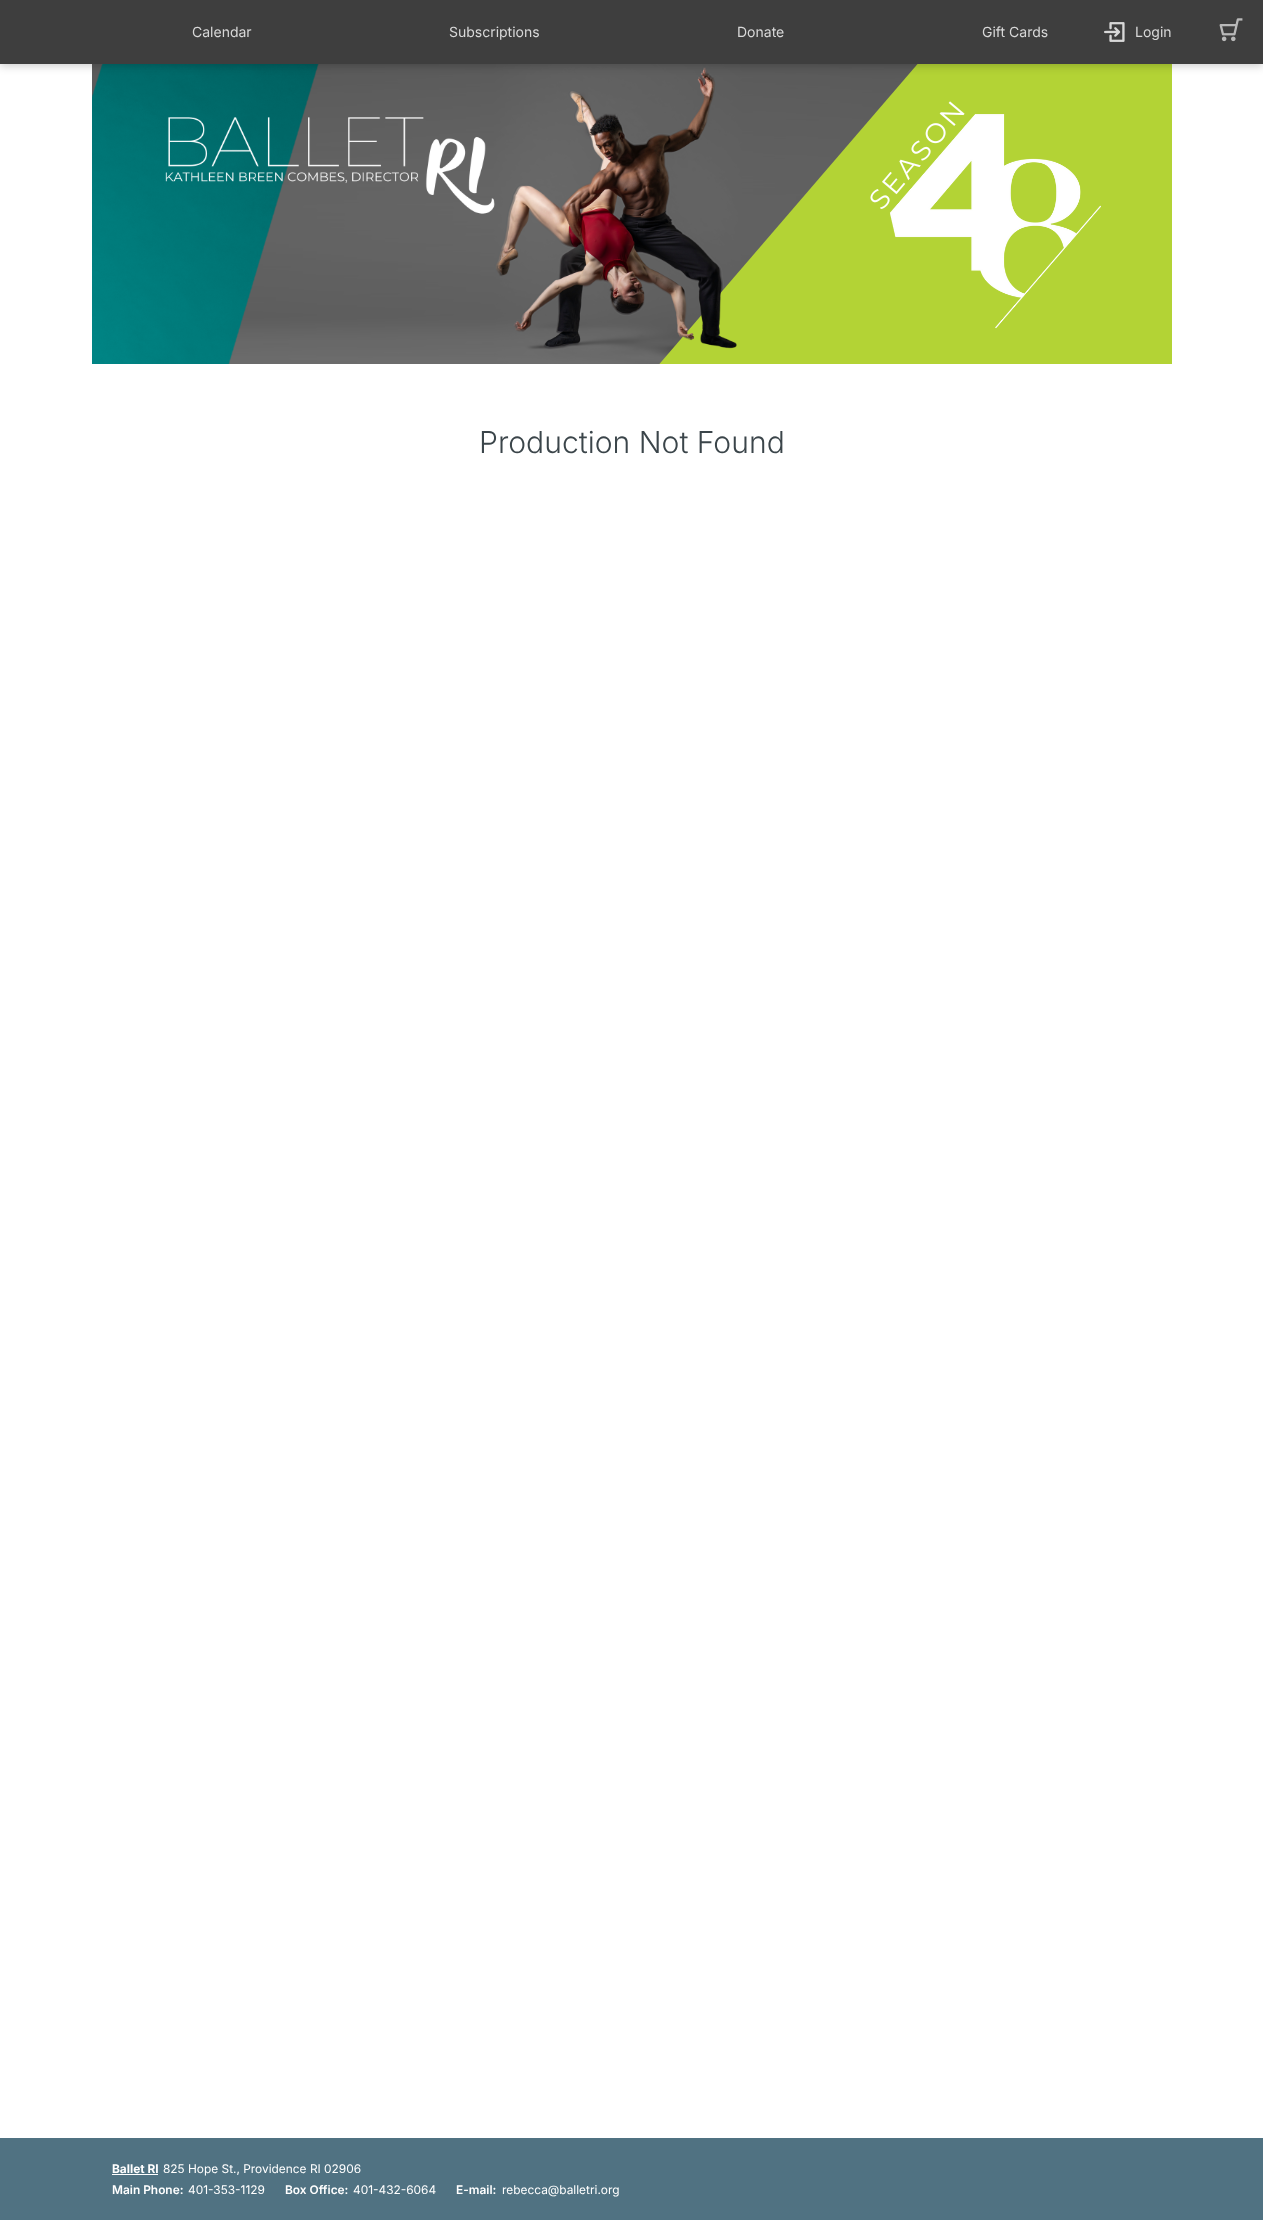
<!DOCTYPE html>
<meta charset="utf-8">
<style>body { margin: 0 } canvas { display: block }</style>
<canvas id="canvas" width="1263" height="2220"></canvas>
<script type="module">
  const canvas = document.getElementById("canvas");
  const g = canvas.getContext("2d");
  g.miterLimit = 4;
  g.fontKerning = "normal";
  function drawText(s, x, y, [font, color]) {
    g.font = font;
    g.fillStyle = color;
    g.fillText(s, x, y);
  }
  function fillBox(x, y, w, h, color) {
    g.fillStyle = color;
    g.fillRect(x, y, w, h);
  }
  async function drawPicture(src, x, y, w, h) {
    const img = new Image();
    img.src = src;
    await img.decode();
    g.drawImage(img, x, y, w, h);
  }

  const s1 = ["14px Inter", "#D8D8D8"];
  const s2 = ["300 30.1px Inter", "#3B454A"];
  const s3 = ["bold 11.9px Inter", "#FFFFFF"];
  const s4 = ["11.9px Inter", "#FFFFFF"];
  const s5 = ["600 11.9px Inter", "#FFFFFF"];

  fillBox(0, 0, 1263, 2220, "#FFFFFF");
  await drawPicture("pic3.png", 92, 64, 1080, 300);
  g.fillStyle = "rgba(0, 0, 0, 0.2)";
  g.filter = "blur(4px)";
  g.beginPath();
  g.rect(0, 2, 1263, 64);
  g.fill();
  g.filter = "none";
  fillBox(0, 0, 1263, 64, "#3E3E3E");
  drawText("Calendar", 192, 37, s1);
  drawText("Subscriptions", 449, 37, s1);
  drawText("Donate", 737, 37, s1);
  drawText("Gift Cards", 982, 37, s1);
  await drawPicture("pic1.png", 1104, 22, 21, 20);
  drawText("Login", 1135, 37, s1);
  await drawPicture("pic2.png", 1219, 18, 24, 24);
  drawText("Production Not Found", 479, 453, s2);
  fillBox(0, 2138, 1263, 82, "#507282");
  drawText("Ballet RI", 112, 2173, s3);
  fillBox(112, 2174, 46, 1, "#FFFFFF");
  drawText("825 Hope St., Providence RI 02906", 163, 2173, s4);
  drawText("Main Phone:", 112, 2194, s5);
  drawText("401-353-1129", 188, 2194, s4);
  drawText("Box Office:", 285, 2194, s5);
  drawText("401-432-6064", 353, 2194, s4);
  drawText("E-mail:", 456, 2194, s5);
  drawText("rebecca@balletri.org", 502, 2194, s4);
</script>
